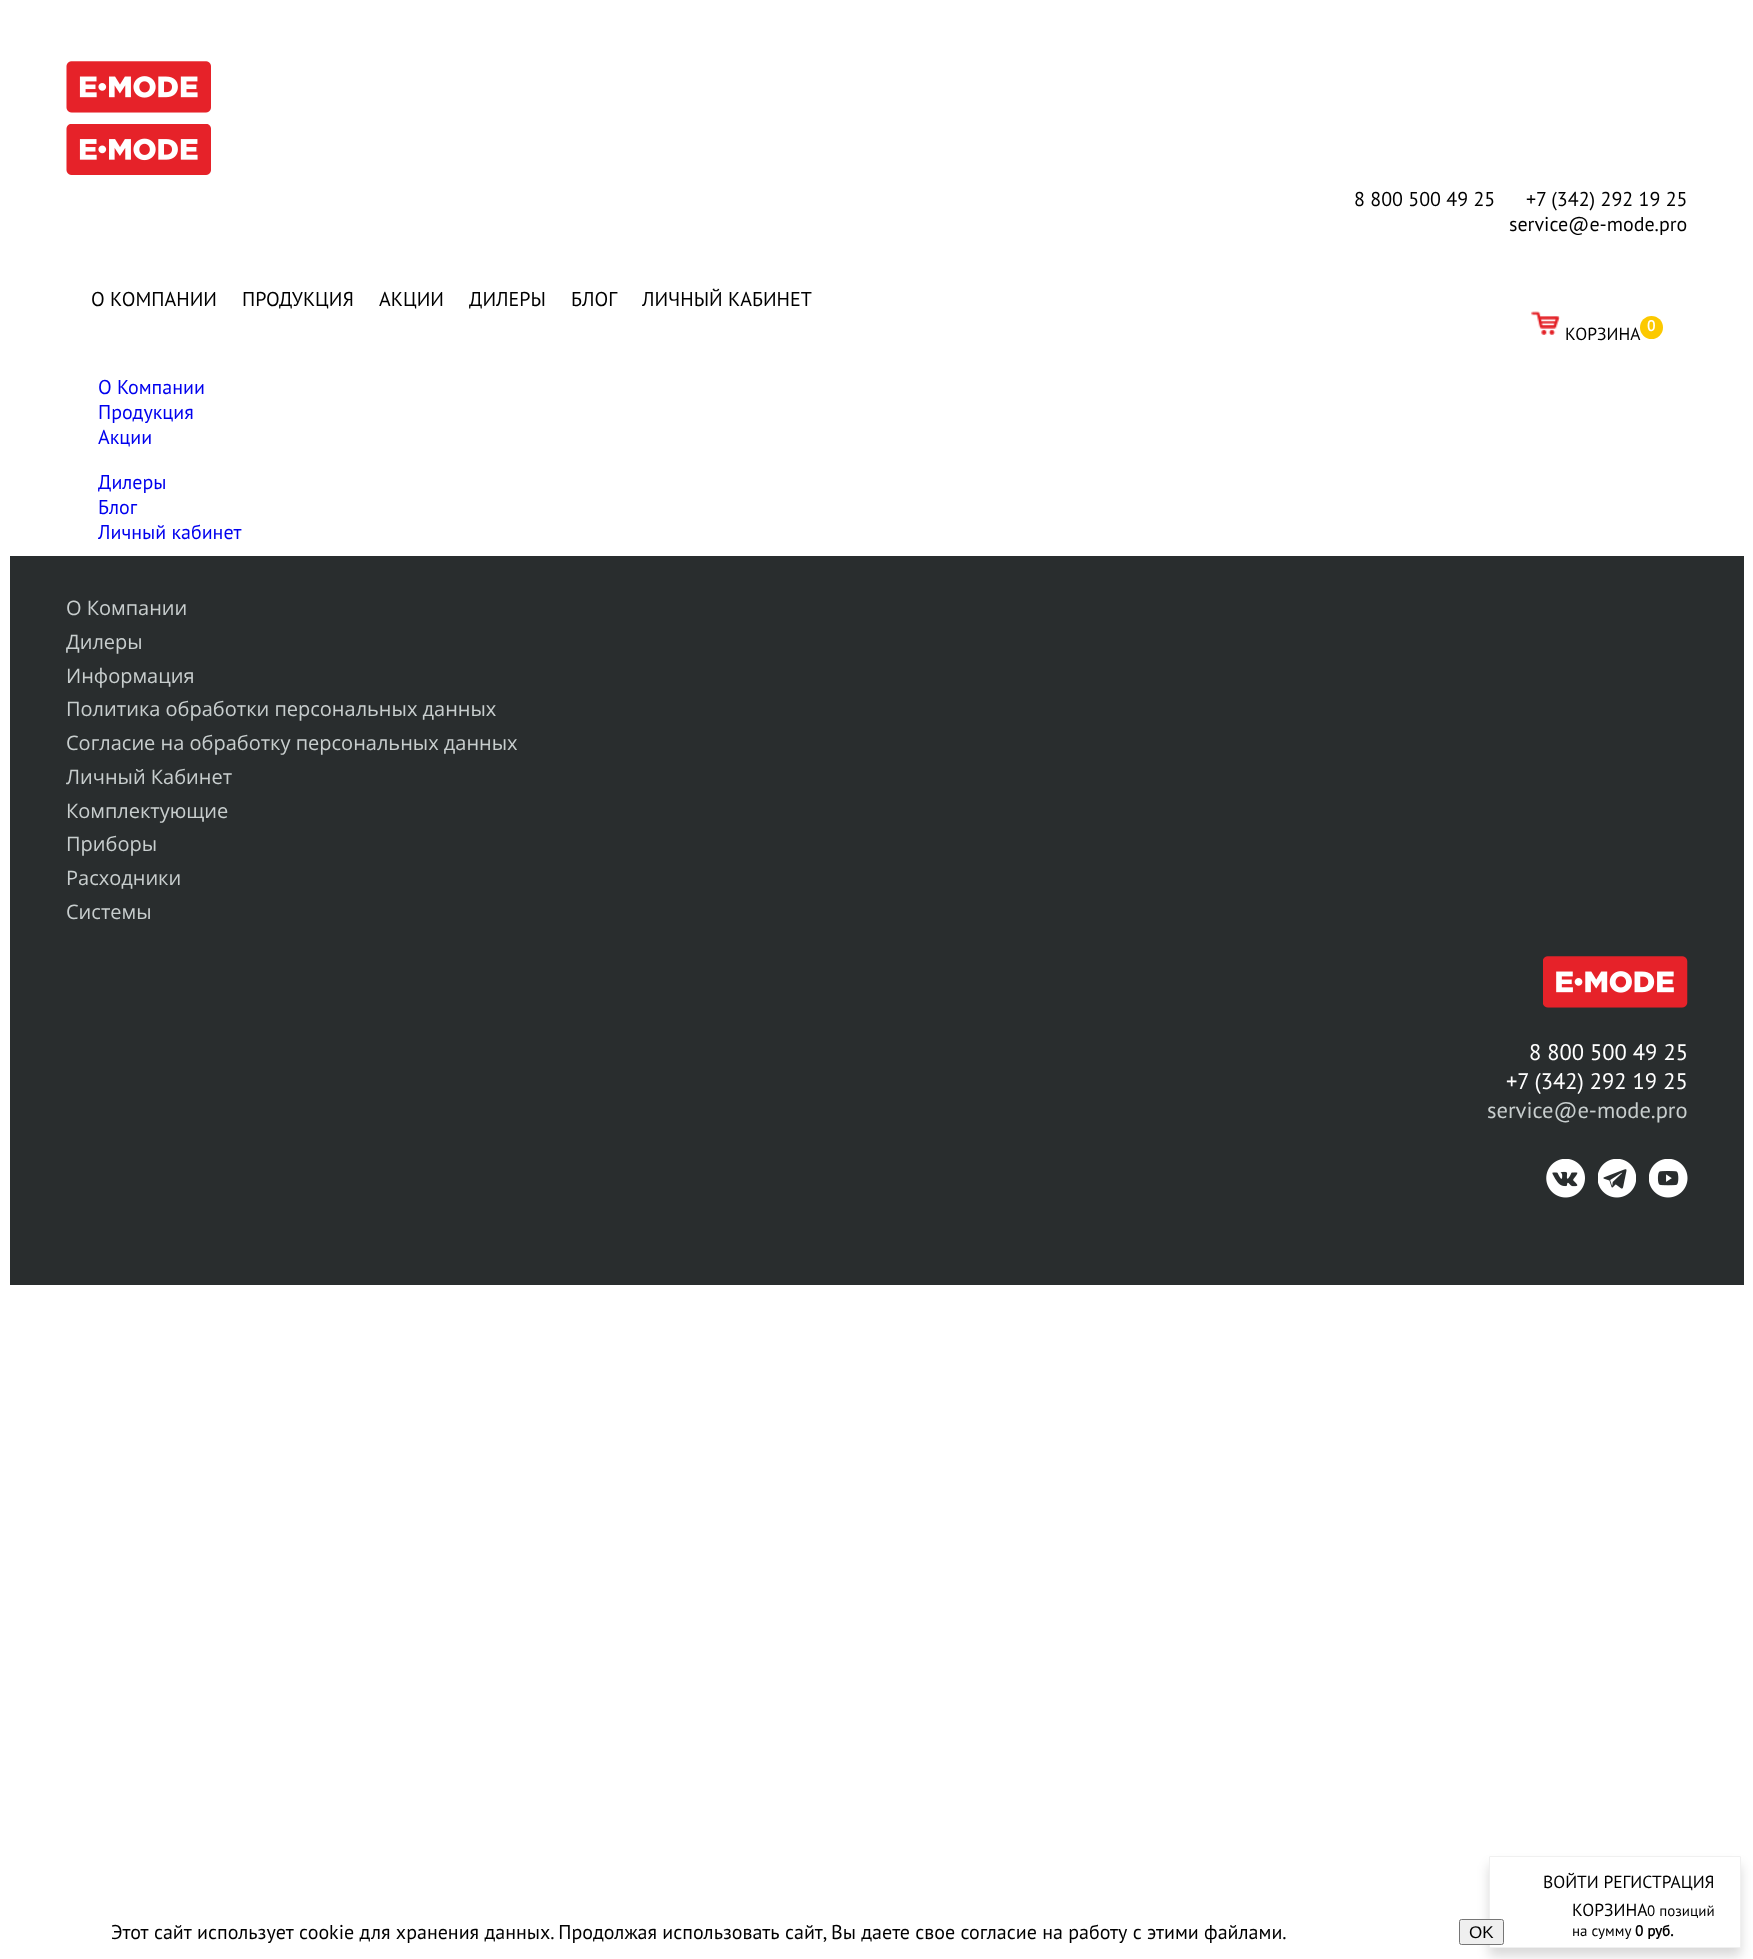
<!DOCTYPE html>
<meta charset="utf-8">
<style>body { margin: 0 } canvas { display: block }</style>
<canvas id="canvas" width="1753" height="1959"></canvas>
<script type="module">
  const canvas = document.getElementById("canvas");
  const g = canvas.getContext("2d");
  g.miterLimit = 4;
  g.fontKerning = "normal";
  function drawText(s, x, y, [font, color]) {
    g.font = font;
    g.fillStyle = color;
    g.fillText(s, x, y);
  }
  function fillBox(x, y, w, h, color) {
    g.fillStyle = color;
    g.fillRect(x, y, w, h);
  }
  async function drawPicture(src, x, y, w, h) {
    const img = new Image();
    img.src = src;
    await img.decode();
    g.drawImage(img, x, y, w, h);
  }

  const s1 = ["20px PT Sans", "#000000"];
  const s2 = ["17.5px PT Sans", "#000000"];
  const s3 = ["bold 15px PT Sans", "#FFFFFF"];
  const s4 = ["20px PT Sans", "#0000EE"];
  const s5 = ["20px Open Sans", "#C8CECE"];
  const s6 = ["22.5px PT Sans", "#FFFFFF"];
  const s7 = ["22.5px PT Sans", "#C8CECE"];
  const s8 = ["15px PT Sans", "#000000"];
  const s9 = ["bold 15px PT Sans", "#000000"];
  const s10 = ["17px Liberation Sans", "#000000"];

  fillBox(0, 0, 1753, 1959, "#FFFFFF");
  await drawPicture("pic1.png", 66, 61, 145, 52);
  await drawPicture("pic2.png", 66, 124, 145, 51);
  drawText("8 800 500 49 25", 1354, 206, s1);
  drawText("+7 (342) 292 19 25", 1526, 206, s1);
  drawText("service@e-mode.pro", 1509, 231, s1);
  drawText("О КОМПАНИИ", 91, 306, s1);
  drawText("ПРОДУКЦИЯ", 242, 306, s1);
  drawText("АКЦИИ", 379, 306, s1);
  drawText("ДИЛЕРЫ", 469, 306, s1);
  drawText("БЛОГ", 571, 306, s1);
  drawText("ЛИЧНЫЙ КАБИНЕТ", 642, 306, s1);
  await drawPicture("pic3.png", 1531, 311, 29, 24);
  drawText("КОРЗИНА", 1565, 340, s2);
  g.fillStyle = "#FCC900";
  g.beginPath();
  g.arc(1651.5, 327.5, 11.5, 0, Math.PI * 2);
  g.fill();
  drawText("0", 1647, 331, s3);
  drawText("О Компании", 98, 394, s4);
  drawText("Продукция", 98, 419, s4);
  drawText("Акции", 98, 444, s4);
  drawText("Дилеры", 98, 489, s4);
  drawText("Блог", 98, 514, s4);
  drawText("Личный кабинет", 98, 539, s4);
  fillBox(10, 556, 1734, 729, "#292D2E");
  drawText("О Компании", 66, 615, s5);
  drawText("Дилеры", 66, 649, s5);
  drawText("Информация", 66, 683, s5);
  drawText("Политика обработки персональных данных", 66, 716, s5);
  drawText("Согласие на обработку персональных данных", 66, 750, s5);
  drawText("Личный Кабинет", 66, 784, s5);
  drawText("Комплектующие", 66, 818, s5);
  drawText("Приборы", 66, 851, s5);
  drawText("Расходники", 66, 885, s5);
  drawText("Системы", 66, 919, s5);
  await drawPicture("pic4.png", 1543, 956, 145, 52);
  drawText("8 800 500 49 25", 1529, 1060, s6);
  drawText("+7 (342) 292 19 25", 1506, 1089, s6);
  drawText("service@e-mode.pro", 1487, 1118, s7);
  await drawPicture("pic5.png", 1546, 1159, 39, 39);
  await drawPicture("pic6.png", 1598, 1159, 38, 39);
  await drawPicture("pic7.png", 1649, 1159, 39, 39);
  g.fillStyle = "rgba(0, 0, 0, 0.15)";
  g.filter = "blur(6px)";
  g.beginPath();
  g.roundRect(1489, 1865, 252, 91, 1);
  g.fill();
  g.filter = "none";
  g.fillStyle = "#FFFFFF";
  g.beginPath();
  g.roundRect(1489.5, 1856.5, 251, 91, 0.5);
  g.fill();
  g.strokeStyle = "#F0F0F0";
  g.stroke();
  drawText("ВОЙТИ РЕГИСТРАЦИЯ", 1543, 1888, s2);
  drawText("КОРЗИНА", 1572, 1916, s2);
  drawText("0 позиций", 1647, 1916, s8);
  drawText("на сумму", 1572, 1936, s8);
  drawText("0 руб.", 1635, 1936, s9);
  drawText("Этот сайт использует cookie для хранения данных. Продолжая использовать сайт, Вы даете свое согласие на работу с этими файлами.", 111, 1939, s1);
  g.fillStyle = "#EFEFEF";
  g.beginPath();
  g.roundRect(1459.5, 1919.5, 44, 25, 2);
  g.fill();
  g.strokeStyle = "#767676";
  g.stroke();
  drawText("OK", 1469, 1938, s10);
</script>
